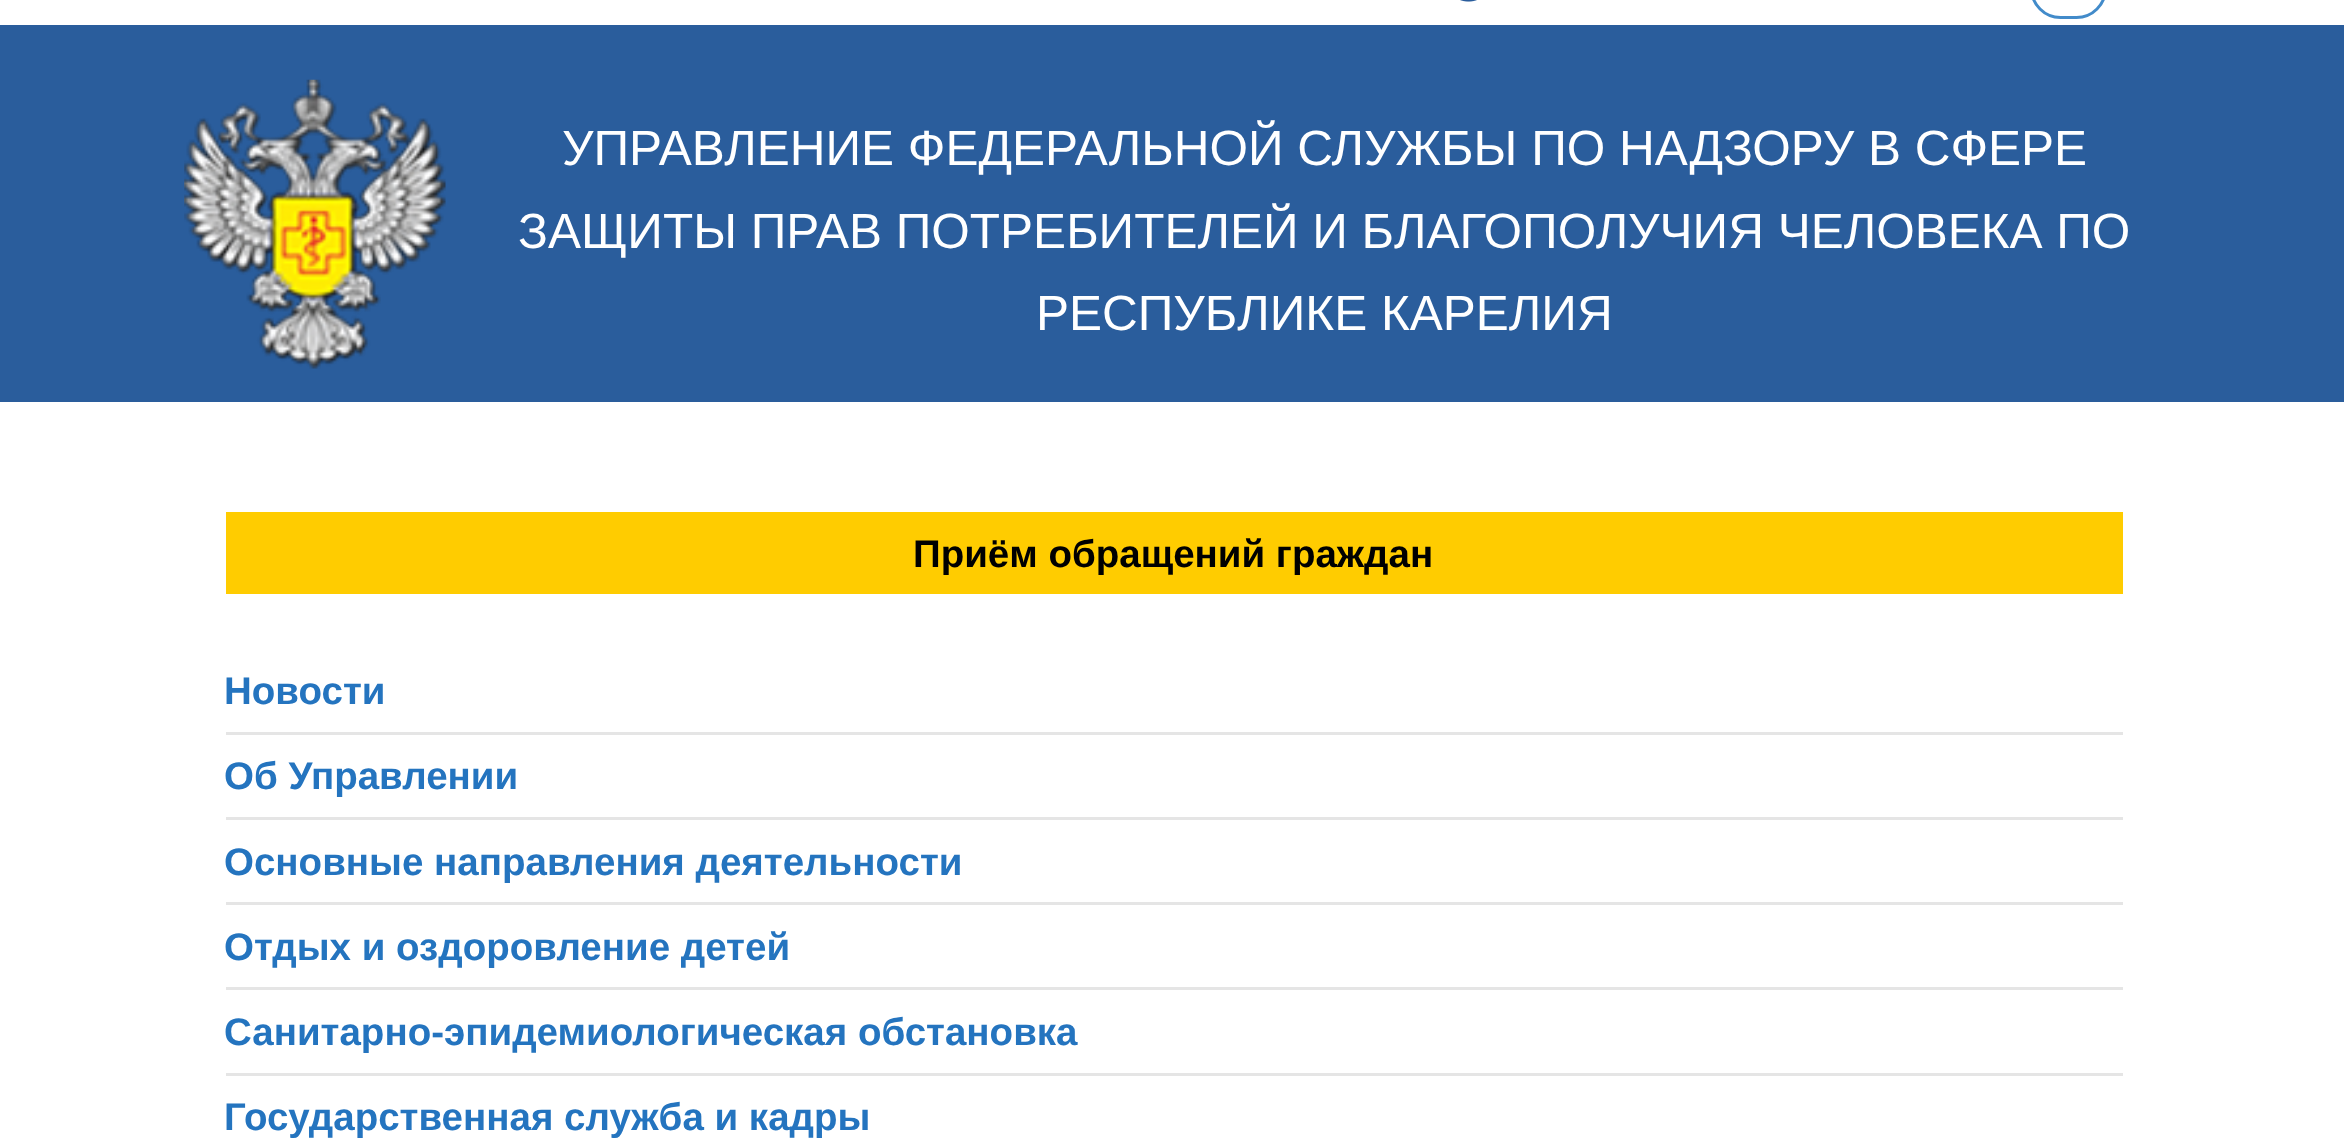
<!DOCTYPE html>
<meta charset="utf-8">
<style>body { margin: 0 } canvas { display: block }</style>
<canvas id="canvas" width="2344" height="1146"></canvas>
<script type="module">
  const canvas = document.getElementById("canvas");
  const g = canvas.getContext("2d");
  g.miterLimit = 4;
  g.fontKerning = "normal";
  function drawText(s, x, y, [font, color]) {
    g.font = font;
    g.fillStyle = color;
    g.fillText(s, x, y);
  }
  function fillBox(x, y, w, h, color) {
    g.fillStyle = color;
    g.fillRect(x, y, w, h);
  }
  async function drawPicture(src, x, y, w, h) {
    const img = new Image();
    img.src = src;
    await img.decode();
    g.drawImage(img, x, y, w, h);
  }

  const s1 = ["49.5px Liberation Sans", "#FFFFFF"];
  const s2 = ["bold 38.5px Liberation Sans", "#000000"];
  const s3 = ["bold 38.5px Liberation Sans", "#2474BF"];

  fillBox(0, 0, 2344, 1146, "#FFFFFF");
  fillBox(0, 25, 2344, 377, "#2A5D9C");
  await drawPicture("pic1.png", 1460, 0, 17, 2);
  g.beginPath();
  g.roundRect(2031.5, -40.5, 74, 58, 37);
  g.strokeStyle = "#428BCA";
  g.lineWidth = 3;
  g.stroke();
  await drawPicture("pic2.png", 184, 79, 262, 290);
  drawText("УПРАВЛЕНИЕ ФЕДЕРАЛЬНОЙ СЛУЖБЫ ПО НАДЗОРУ В СФЕРЕ", 562, 165, s1);
  drawText("ЗАЩИТЫ ПРАВ ПОТРЕБИТЕЛЕЙ И БЛАГОПОЛУЧИЯ ЧЕЛОВЕКА ПО", 518, 248, s1);
  drawText("РЕСПУБЛИКЕ КАРЕЛИЯ", 1036, 330, s1);
  fillBox(226, 512, 1897, 82, "#FFCC00");
  drawText("Приём обращений граждан", 913, 567, s2);
  fillBox(226, 732, 1897, 3, "#E5E5E5");
  drawText("Новости", 224, 704, s3);
  fillBox(226, 817, 1897, 3, "#E5E5E5");
  drawText("Об Управлении", 224, 789, s3);
  fillBox(226, 902, 1897, 3, "#E5E5E5");
  drawText("Основные направления деятельности", 224, 875, s3);
  fillBox(226, 987, 1897, 3, "#E5E5E5");
  drawText("Отдых и оздоровление детей", 224, 960, s3);
  fillBox(226, 1073, 1897, 3, "#E5E5E5");
  drawText("Санитарно-эпидемиологическая обстановка", 224, 1045, s3);
  drawText("Государственная служба и кадры", 224, 1130, s3);
</script>
